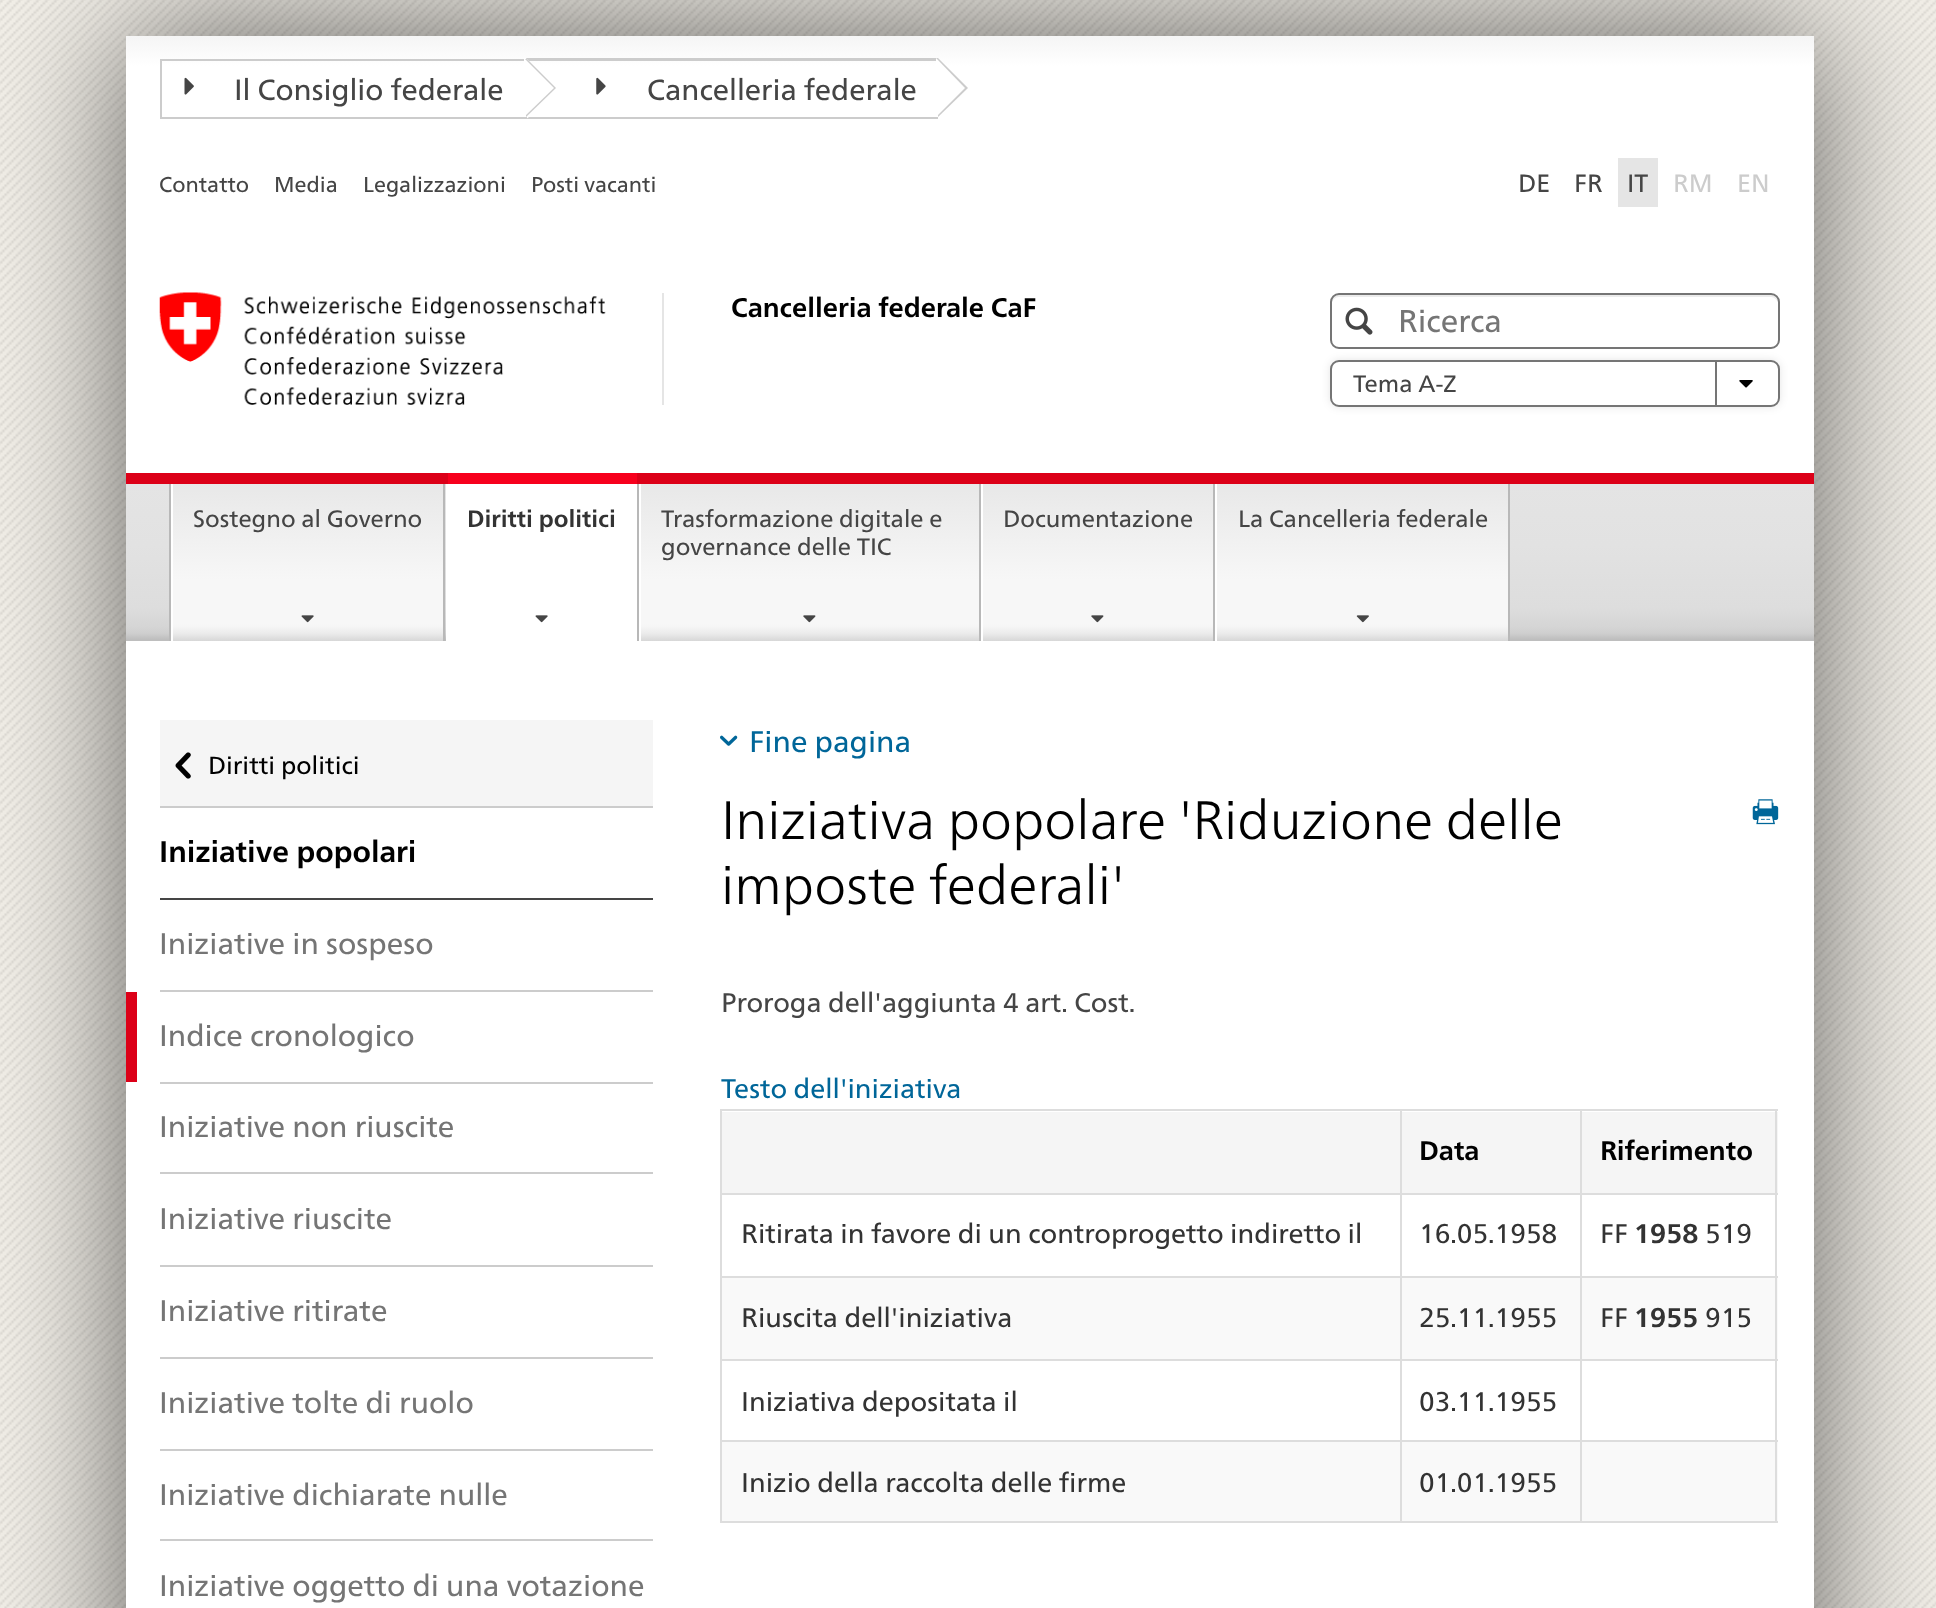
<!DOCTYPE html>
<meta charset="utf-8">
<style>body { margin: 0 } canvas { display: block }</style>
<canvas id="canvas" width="1936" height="1608"></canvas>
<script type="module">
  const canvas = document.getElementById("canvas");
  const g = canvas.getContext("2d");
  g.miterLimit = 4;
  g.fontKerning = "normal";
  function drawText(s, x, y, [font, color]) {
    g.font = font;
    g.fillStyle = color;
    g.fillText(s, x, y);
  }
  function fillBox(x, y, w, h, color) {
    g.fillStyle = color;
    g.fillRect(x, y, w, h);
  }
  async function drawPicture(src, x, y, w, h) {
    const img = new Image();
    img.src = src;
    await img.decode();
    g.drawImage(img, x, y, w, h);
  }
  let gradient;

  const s1 = ["29.25px 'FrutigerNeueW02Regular'", "#454545"];
  const s2 = ["21.5px 'FrutigerNeueW02Regular'", "#454545"];
  const s3 = ["25px 'FrutigerNeueW02Regular'", "#454545"];
  const s4 = ["25px 'FrutigerNeueW02Regular'", "#CCCCCC"];
  const s5 = ["bold 27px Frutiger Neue", "#000000"];
  const s6 = ["31.5px 'FrutigerNeueW02Regular'", "#757575"];
  const s7 = ["23.75px 'FrutigerNeueW02Regular'", "#454545"];
  const s8 = ["bold 23.75px Frutiger Neue", "#333333"];
  const s9 = ["24.75px 'FrutigerNeueW02Regular'", "#000000"];
  const s10 = ["bold 29.75px Frutiger Neue", "#000000"];
  const s11 = ["29.75px 'FrutigerNeueW02Regular'", "#757575"];
  const s12 = ["29.75px 'FrutigerNeueW02Regular'", "#006699"];
  const s13 = ["300 54px Frutiger Neue", "#000000"];
  const s14 = ["27px 'FrutigerNeueW02Regular'", "#454545"];
  const s15 = ["27px 'FrutigerNeueW02Regular'", "#006699"];
  const s16 = ["27px 'FrutigerNeueW02Regular'", "#333333"];
  const s17 = ["bold 27px Frutiger Neue", "#333333"];

  fillBox(0, 0, 1936, 1608, "#FFFFFF");
  await drawPicture("pic1.png", 0, 0, 1936, 1608);
  g.fillStyle = "rgba(0, 0, 0, 0.6)";
  g.filter = "blur(67.5px)";
  g.beginPath();
  g.rect(126, 36, 1688, 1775);
  g.fill();
  g.filter = "none";
  fillBox(126, 641, 1688, 967, "#FFFFFF");
  gradient = g.createLinearGradient(970, 36, 970, 473);
  gradient.addColorStop(0, "#F5F5F5");
  gradient.addColorStop(0.07, "#FFFFFF");
  gradient.addColorStop(1, "#FFFFFF");
  g.fillStyle = gradient;
  g.fillRect(126, 36, 1688, 437);
  fillBox(160, 59, 367, 2, "#CCCCCC");
  fillBox(160, 117, 367, 2, "#CCCCCC");
  fillBox(160, 59, 2, 60, "#CCCCCC");
  g.beginPath();
  g.moveTo(526, 117);
  g.lineTo(526, 58);
  g.lineTo(556, 88);
  g.closePath();
  g.fill();
  g.fillStyle = "#FFFFFF";
  g.beginPath();
  g.moveTo(524, 117);
  g.lineTo(524, 58);
  g.lineTo(554, 88);
  g.closePath();
  g.fill();
  await drawPicture("pic2.png", 184, 77, 10, 18);
  drawText("Il Consiglio federale", 234, 100, s1);
  g.fillStyle = "#CCCCCC";
  g.beginPath();
  g.moveTo(526, 58);
  g.lineTo(938, 58);
  g.lineTo(938, 61);
  g.lineTo(529, 61);
  g.closePath();
  g.fill();
  g.beginPath();
  g.moveTo(938, 119);
  g.lineTo(526, 119);
  g.lineTo(529, 117);
  g.lineTo(938, 117);
  g.closePath();
  g.fill();
  g.beginPath();
  g.moveTo(938, 117);
  g.lineTo(938, 58);
  g.lineTo(968, 88);
  g.closePath();
  g.fill();
  g.fillStyle = "#FFFFFF";
  g.beginPath();
  g.moveTo(936, 117);
  g.lineTo(936, 58);
  g.lineTo(965, 88);
  g.closePath();
  g.fill();
  await drawPicture("pic3.png", 596, 77, 10, 18);
  drawText("Cancelleria federale", 647, 100, s1);
  drawText("Contatto", 159, 192, s2);
  drawText("Media", 274, 192, s2);
  drawText("Legalizzazioni", 363, 192, s2);
  drawText("Posti vacanti", 531, 192, s2);
  drawText("DE", 1518, 192, s3);
  drawText("FR", 1574, 192, s3);
  fillBox(1618, 158, 40, 49, "#E5E5E5");
  drawText("IT", 1627, 192, s3);
  drawText("RM", 1673, 192, s4);
  drawText("EN", 1737, 192, s4);
  fillBox(662, 293, 2, 112, "#E5E5E5");
  await drawPicture("pic4.png", 159, 292, 447, 113);
  drawText("Cancelleria federale CaF", 731, 317, s5);
  g.fillStyle = "#ECECEC";
  g.beginPath();
  g.moveTo(1339, 297);
  g.lineTo(1771, 297);
  g.bezierCurveTo(1774, 297, 1778, 300, 1778, 304);
  g.bezierCurveTo(1778, 300, 1776, 295, 1771, 295);
  g.lineTo(1339, 295);
  g.bezierCurveTo(1334, 295, 1332, 300, 1332, 304);
  g.bezierCurveTo(1332, 300, 1335, 297, 1339, 297);
  g.closePath();
  g.fill();
  g.fillStyle = "rgba(0, 0, 0, 0.1)";
  g.filter = "blur(4.5px)";
  g.beginPath();
  g.roundRect(1330, 360, 450, 47, 9);
  g.fill();
  g.filter = "none";
  g.beginPath();
  g.roundRect(1331, 294, 448, 54, 8);
  g.strokeStyle = "#757575";
  g.lineWidth = 2;
  g.stroke();
  await drawPicture("pic5.png", 1345, 307, 28, 28);
  drawText("Ricerca", 1398, 332, s6);
  g.fillStyle = "#FFFFFF";
  g.beginPath();
  g.roundRect(1331, 361, 448, 45, 8);
  g.fill();
  g.stroke();
  drawText("Tema A-Z", 1353, 392, s7);
  fillBox(1715, 362, 2, 43, "#757575");
  await drawPicture("pic6.png", 1739, 380, 14, 8);
  gradient = g.createLinearGradient(970, 484, 970, 641);
  gradient.addColorStop(0, "#E4E4E4");
  gradient.addColorStop(0.39, "#E2E2E2");
  gradient.addColorStop(0.79, "#DDDDDD");
  gradient.addColorStop(0.91, "#D5D5D5");
  gradient.addColorStop(0.95, "#CFCFCF");
  gradient.addColorStop(0.99, "#BEBEBE");
  g.fillStyle = gradient;
  g.fillRect(126, 484, 1688, 157);
  fillBox(126, 473, 1688, 11, "#DC0018");
  fillBox(169, 484, 2, 157, "#B8B8B8");
  fillBox(443, 484, 2, 157, "#B8B8B8");
  fillBox(171, 484, 2, 157, "#FFFFFF");
  gradient = g.createLinearGradient(308, 484, 308, 641);
  gradient.addColorStop(0, "#E8E8E8");
  gradient.addColorStop(0.61, "#F7F7F7");
  gradient.addColorStop(0.89, "#F7F7F7");
  gradient.addColorStop(0.91, "#F5F5F5");
  gradient.addColorStop(0.95, "#ECECEC");
  gradient.addColorStop(1, "#D7D7D7");
  g.fillStyle = gradient;
  g.fillRect(173, 484, 270, 157);
  drawText("Sostegno al Governo", 193, 527, s7);
  await drawPicture("pic7.png", 301, 615, 13, 8);
  fillBox(637, 484, 2, 157, "#B8B8B8");
  fillBox(446, 484, 191, 157, "#FFFFFF");
  fillBox(448, 473, 189, 11, "#F7001D");
  drawText("Diritti politici", 467, 527, s8);
  await drawPicture("pic8.png", 535, 615, 13, 8);
  fillBox(979, 484, 2, 157, "#B8B8B8");
  fillBox(639, 484, 2, 157, "#FFFFFF");
  gradient = g.createLinearGradient(810, 484, 810, 641);
  gradient.addColorStop(0, "#E8E8E8");
  gradient.addColorStop(0.61, "#F7F7F7");
  gradient.addColorStop(0.89, "#F7F7F7");
  gradient.addColorStop(0.91, "#F5F5F5");
  gradient.addColorStop(0.95, "#ECECEC");
  gradient.addColorStop(1, "#D7D7D7");
  g.fillStyle = gradient;
  g.fillRect(641, 484, 338, 157);
  drawText("Trasformazione digitale e", 661, 527, s7);
  drawText("governance delle TIC", 661, 555, s7);
  await drawPicture("pic9.png", 803, 615, 13, 8);
  fillBox(1213, 484, 2, 157, "#B8B8B8");
  fillBox(981, 484, 2, 157, "#FFFFFF");
  gradient = g.createLinearGradient(1098, 484, 1098, 641);
  gradient.addColorStop(0, "#E8E8E8");
  gradient.addColorStop(0.61, "#F7F7F7");
  gradient.addColorStop(0.89, "#F7F7F7");
  gradient.addColorStop(0.91, "#F5F5F5");
  gradient.addColorStop(0.95, "#ECECEC");
  gradient.addColorStop(1, "#D7D7D7");
  g.fillStyle = gradient;
  g.fillRect(983, 484, 230, 157);
  drawText("Documentazione", 1003, 527, s7);
  await drawPicture("pic9.png", 1091, 615, 13, 8);
  fillBox(1508, 484, 2, 157, "#B8B8B8");
  fillBox(1215, 484, 2, 157, "#FFFFFF");
  gradient = g.createLinearGradient(1362, 484, 1362, 641);
  gradient.addColorStop(0, "#E8E8E8");
  gradient.addColorStop(0.61, "#F7F7F7");
  gradient.addColorStop(0.89, "#F7F7F7");
  gradient.addColorStop(0.91, "#F5F5F5");
  gradient.addColorStop(0.95, "#ECECEC");
  gradient.addColorStop(1, "#D7D7D7");
  g.fillStyle = gradient;
  g.fillRect(1217, 484, 291, 157);
  drawText("La Cancelleria federale", 1238, 527, s7);
  await drawPicture("pic10.png", 1356, 615, 13, 8);
  fillBox(160, 720, 493, 86, "#F5F5F5");
  fillBox(160, 806, 493, 2, "#CCCCCC");
  await drawPicture("pic11.png", 175, 752, 16, 27);
  drawText("Diritti politici", 208, 774, s9);
  fillBox(160, 898, 493, 2, "#454545");
  drawText("Iniziative popolari", 159, 862, s10);
  fillBox(160, 990, 493, 2, "#CCCCCC");
  drawText("Iniziative in sospeso", 159, 954, s11);
  fillBox(160, 1082, 493, 2, "#CCCCCC");
  fillBox(126, 992, 11, 90, "#DC0018");
  drawText("Indice cronologico", 159, 1046, s11);
  fillBox(160, 1172, 493, 2, "#CCCCCC");
  drawText("Iniziative non riuscite", 159, 1137, s11);
  fillBox(160, 1265, 493, 2, "#CCCCCC");
  drawText("Iniziative riuscite", 159, 1229, s11);
  fillBox(160, 1357, 493, 2, "#CCCCCC");
  drawText("Iniziative ritirate", 159, 1321, s11);
  fillBox(160, 1449, 493, 2, "#CCCCCC");
  drawText("Iniziative tolte di ruolo", 159, 1413, s11);
  fillBox(160, 1539, 493, 2, "#CCCCCC");
  drawText("Iniziative dichiarate nulle", 159, 1505, s11);
  drawText("Iniziative oggetto di una votazione", 159, 1596, s11);
  await drawPicture("pic12.png", 720, 735, 18, 11);
  drawText("Fine pagina", 749, 752, s12);
  drawText("Iniziativa popolare 'Riduzione delle", 721, 839, s13);
  drawText("imposte federali'", 721, 904, s13);
  await drawPicture("pic13.png", 1752, 799, 27, 26);
  drawText("Proroga dell'aggiunta 4 art. Cost.", 721, 1012, s14);
  drawText("Testo dell'iniziativa", 721, 1098, s15);
  fillBox(720, 1109, 1058, 2, "#DDDDDD");
  fillBox(1582, 1112, 196, 81, "#F5F5F5");
  fillBox(722, 1278, 1056, 81, "#F9F9F9");
  fillBox(722, 1442, 1056, 79, "#F9F9F9");
  fillBox(1775, 1109, 2, 414, "#DDDDDD");
  fillBox(720, 1521, 1058, 2, "#DDDDDD");
  fillBox(720, 1109, 2, 414, "#DDDDDD");
  fillBox(722, 1112, 678, 81, "#F5F5F5");
  fillBox(1402, 1112, 178, 81, "#F5F5F5");
  fillBox(1580, 1193, 198, 2, "#DDDDDD");
  fillBox(1580, 1276, 198, 2, "#DDDDDD");
  fillBox(1580, 1359, 198, 2, "#DDDDDD");
  fillBox(1580, 1440, 198, 2, "#DDDDDD");
  fillBox(1580, 1440, 2, 83, "#DDDDDD");
  fillBox(1400, 1440, 182, 2, "#DDDDDD");
  fillBox(1580, 1359, 2, 83, "#DDDDDD");
  fillBox(1400, 1359, 182, 2, "#DDDDDD");
  fillBox(1580, 1276, 2, 85, "#DDDDDD");
  fillBox(1400, 1276, 182, 2, "#DDDDDD");
  fillBox(1580, 1193, 2, 85, "#DDDDDD");
  fillBox(1400, 1193, 182, 2, "#DDDDDD");
  fillBox(1400, 1440, 2, 83, "#DDDDDD");
  fillBox(720, 1440, 682, 2, "#DDDDDD");
  fillBox(1400, 1359, 2, 83, "#DDDDDD");
  fillBox(720, 1359, 682, 2, "#DDDDDD");
  fillBox(1400, 1276, 2, 85, "#DDDDDD");
  fillBox(720, 1276, 682, 2, "#DDDDDD");
  fillBox(1400, 1193, 2, 85, "#DDDDDD");
  fillBox(720, 1193, 682, 2, "#DDDDDD");
  fillBox(1400, 1109, 2, 86, "#DDDDDD");
  drawText("Data", 1419, 1160, s5);
  fillBox(1580, 1109, 2, 86, "#DDDDDD");
  drawText("Riferimento", 1600, 1160, s5);
  drawText("Ritirata in favore di un controprogetto indiretto il", 741, 1243, s16);
  drawText("16.05.1958", 1419, 1243, s16);
  drawText("FF", 1600, 1243, s16);
  drawText("1958", 1634, 1243, s17);
  drawText("519", 1705, 1243, s16);
  drawText("Riuscita dell'iniziativa", 741, 1327, s16);
  drawText("25.11.1955", 1419, 1327, s16);
  drawText("FF", 1600, 1327, s16);
  drawText("1955", 1634, 1327, s17);
  drawText("915", 1705, 1327, s16);
  drawText("Iniziativa depositata il", 741, 1411, s16);
  drawText("03.11.1955", 1419, 1411, s16);
  drawText("Inizio della raccolta delle firme", 741, 1492, s16);
  drawText("01.01.1955", 1419, 1492, s16);
</script>
